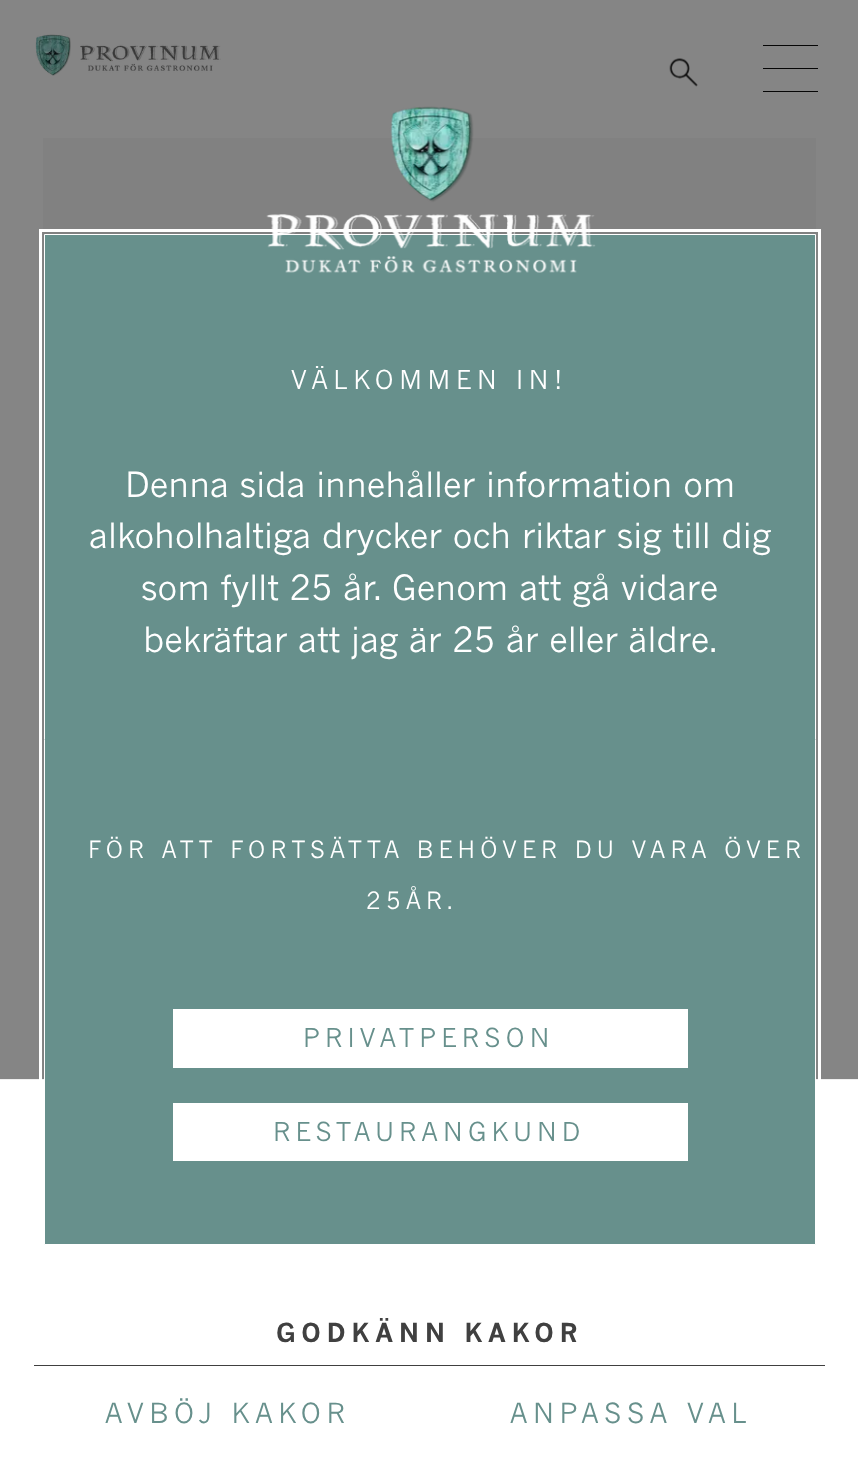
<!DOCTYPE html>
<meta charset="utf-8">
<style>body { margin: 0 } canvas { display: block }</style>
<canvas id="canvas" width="858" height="1478"></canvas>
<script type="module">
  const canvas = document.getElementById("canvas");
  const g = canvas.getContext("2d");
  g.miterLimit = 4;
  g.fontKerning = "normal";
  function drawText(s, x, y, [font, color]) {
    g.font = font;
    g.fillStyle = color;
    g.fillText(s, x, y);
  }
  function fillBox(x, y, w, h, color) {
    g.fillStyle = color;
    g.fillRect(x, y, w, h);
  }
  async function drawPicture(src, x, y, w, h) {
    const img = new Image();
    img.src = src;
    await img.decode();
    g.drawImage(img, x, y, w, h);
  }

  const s1 = ["25.75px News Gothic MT", "#FFFFFF"];
  const s2 = ["34.4px News Gothic MT", "#FFFFFF"];
  const s3 = ["23.6px News Gothic MT", "#FFFFFF"];
  const s4 = ["25.75px News Gothic MT", "#67908C"];
  const s5 = ["bold 25.75px News Gothic MT", "#404040"];
  const s6 = ["27.5px News Gothic MT", "#67908C"];

  fillBox(0, 0, 858, 1478, "#858585");
  await drawPicture("pic1.png", 35, 34, 186, 42);
  await drawPicture("pic2.png", 669, 58, 29, 29);
  fillBox(763, 45, 55, 1, "#060606");
  fillBox(763, 68, 55, 1, "#060606");
  fillBox(763, 91, 55, 1, "#060606");
  fillBox(43, 138, 773, 941, "#818181");
  fillBox(0, 1080, 858, 398, "#FFFFFF");
  fillBox(0, 1079, 858, 1, "#EEEEEE");
  g.fillStyle = "#67908C";
  g.beginPath();
  g.rect(44.5, 234.5, 771, 1010);
  g.fill();
  g.strokeStyle = "#FFFFFF";
  g.stroke();
  g.lineWidth = 3;
  g.strokeRect(40.5, 230.5, 779, 1018);
  await drawPicture("pic3.png", 266, 106, 330, 167);
  g.letterSpacing = "5.7px";
  drawText("VÄLKOMMEN IN!", 291, 389, s1);
  g.letterSpacing = "0px";
  drawText("Denna sida innehåller information om", 125, 497, s2);
  drawText("alkoholhaltiga drycker och riktar sig till dig", 89, 548, s2);
  drawText("som fyllt 25 år. Genom att gå vidare", 141, 600, s2);
  drawText("bekräftar att jag är 25 år eller äldre.", 143, 652, s2);
  g.letterSpacing = "5.2px";
  drawText("FÖR ATT FORTSÄTTA BEHÖVER DU VARA ÖVER", 88, 858, s3);
  drawText("25ÅR.", 366, 909, s3);
  fillBox(173, 1009, 515, 59, "#FFFFFF");
  g.letterSpacing = "5.25px";
  drawText("PRIVATPERSON", 303, 1047, s4);
  fillBox(173, 1103, 515, 58, "#FFFFFF");
  drawText("RESTAURANGKUND", 273, 1141, s4);
  fillBox(34, 1365, 791, 1, "#404040");
  g.letterSpacing = "5.7px";
  drawText("GODKÄNN KAKOR", 276, 1342, s5);
  g.letterSpacing = "5.6px";
  drawText("AVBÖJ KAKOR", 105, 1423, s6);
  drawText("ANPASSA VAL", 510, 1423, s6);
</script>
